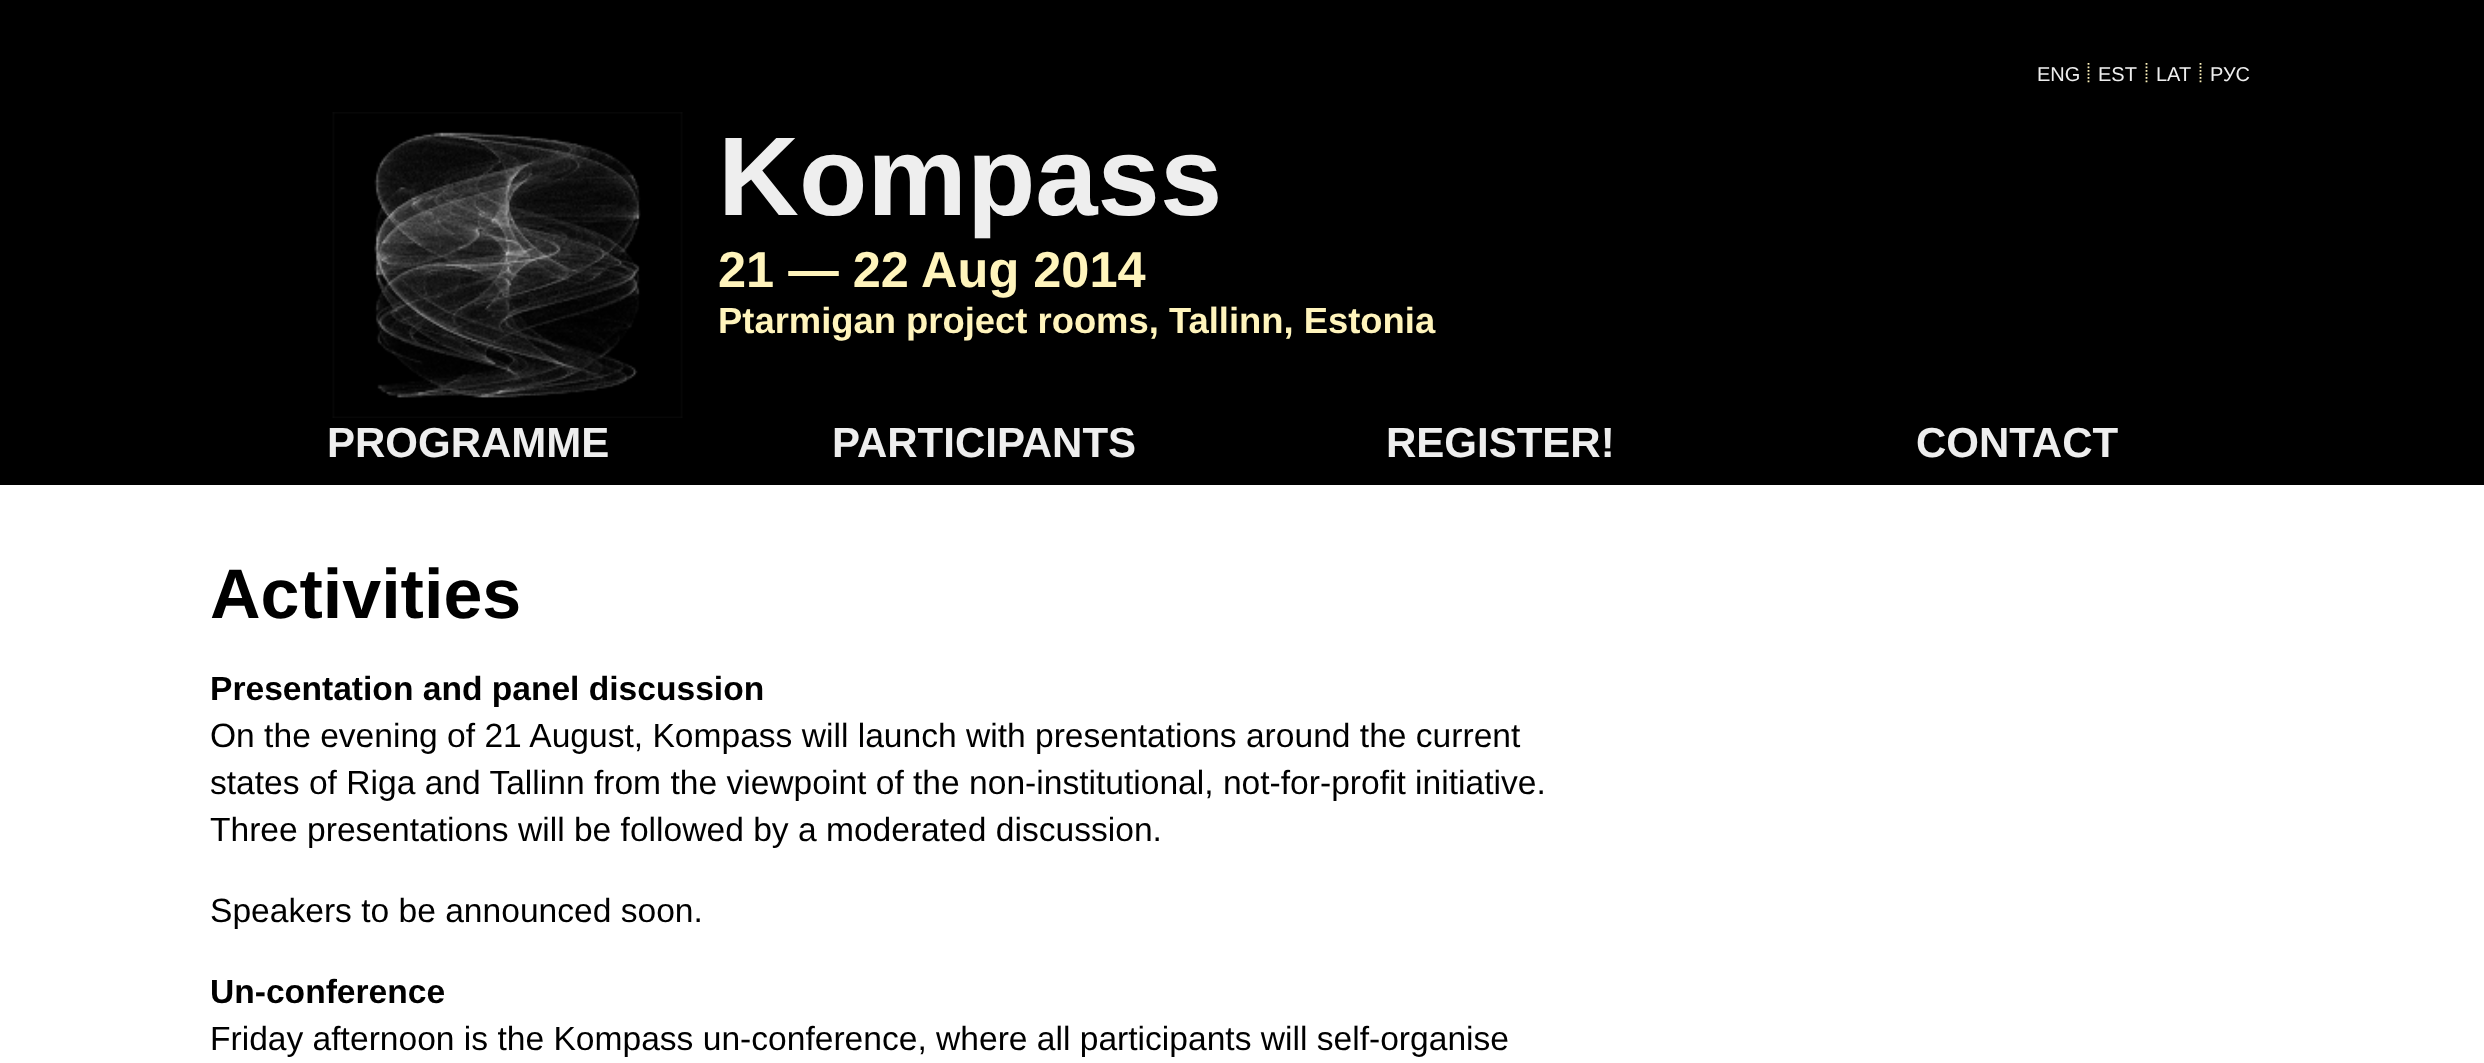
async function draw(canvas) {
  canvas.width = 2484
  canvas.height = 1063
  const ctx = canvas.getContext('2d')
  ctx.miterLimit = 4
  ctx.fontKerning = 'normal'
  async function loadImage(src) {
    const img = new Image()
    img.src = src
    await img.decode()
    return img
  }

  ctx.fillStyle = '#fff'
  ctx.fillRect(0, 0, 2484, 1063)
  ctx.fillStyle = '#000'
  ctx.fillRect(0, 0, 2484, 485)
  ctx.beginPath()
  ctx.moveTo(2088.5, 63)
  ctx.lineTo(2088.5, 84)
  ctx.strokeStyle = '#fff4bc'
  ctx.lineWidth = 1.8
  ctx.setLineDash([1.75, 1.75])
  ctx.stroke()
  ctx.font = '20px Liberation Sans'
  ctx.fillStyle = '#eee'
  ctx.fillText('ENG', 2037, 81)
  ctx.beginPath()
  ctx.moveTo(2146.5, 63)
  ctx.lineTo(2146.5, 84)
  ctx.stroke()
  ctx.fillText('EST', 2098, 81)
  ctx.beginPath()
  ctx.moveTo(2200.5, 63)
  ctx.lineTo(2200.5, 84)
  ctx.stroke()
  ctx.fillText('LAT', 2156, 81)
  ctx.fillText('РУС', 2210, 81)
  ctx.drawImage(await loadImage('image0.png'), 332, 112, 351, 306)
  ctx.font = 'bold 112px Liberation Sans'
  ctx.fillText('Kompass', 718, 215)
  ctx.font = 'bold 50.5px Liberation Sans'
  ctx.fillStyle = '#fff4bc'
  ctx.fillText('21 — 22 Aug 2014', 718, 287)
  ctx.font = 'bold 36.4px Liberation Sans'
  ctx.fillText('Ptarmigan project rooms, Tallinn, Estonia', 718, 333)
  ctx.font = 'bold 42px Liberation Sans'
  ctx.fillStyle = '#eee'
  ctx.fillText('PROGRAMME', 327, 457)
  ctx.fillText('PARTICIPANTS', 832, 457)
  ctx.fillText('REGISTER!', 1386, 457)
  ctx.fillText('CONTACT', 1916, 457)
  ctx.font = 'bold 70px Liberation Sans'
  ctx.fillStyle = '#000'
  ctx.fillText('Activities', 210, 618)
  ctx.font = 'bold 33.6px Liberation Sans'
  ctx.fillText('Presentation and panel discussion', 210, 700)
  ctx.font = '33.6px Liberation Sans'
  ctx.fillText('On the evening of 21 August, Kompass will launch with presentations around the current', 210, 747)
  ctx.fillText('states of Riga and Tallinn from the viewpoint of the non-institutional, not-for-profit initiative.', 210, 794)
  ctx.fillText('Three presentations will be followed by a moderated discussion.', 210, 841)
  ctx.fillText('Speakers to be announced soon.', 210, 922)
  ctx.font = 'bold 33.6px Liberation Sans'
  ctx.fillText('Un-conference', 210, 1003)
  ctx.font = '33.6px Liberation Sans'
  ctx.fillText('Friday afternoon is the Kompass un-conference, where all participants will self-organise', 210, 1050)
}

draw(document.querySelector('canvas'))
